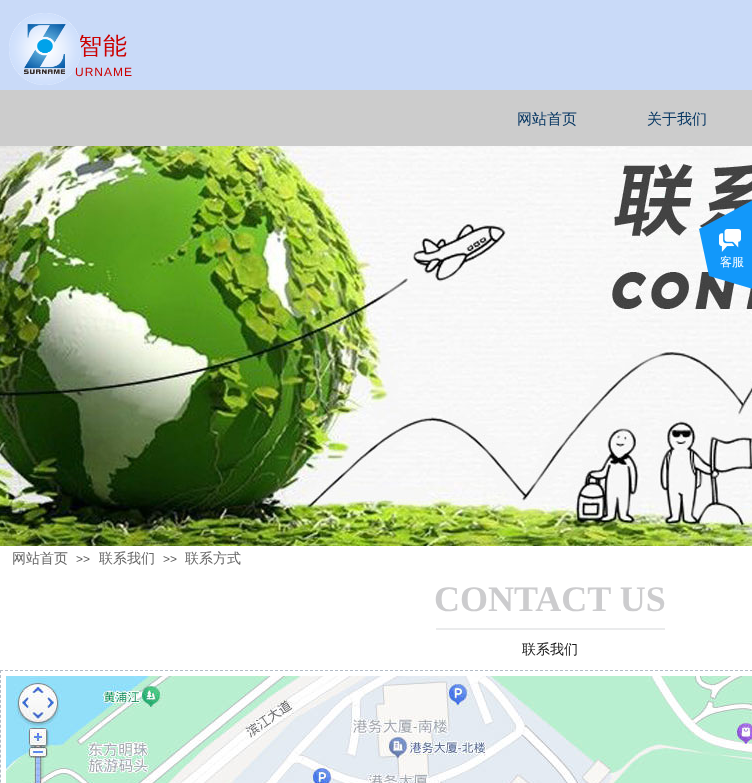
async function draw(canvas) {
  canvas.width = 752
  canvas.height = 783
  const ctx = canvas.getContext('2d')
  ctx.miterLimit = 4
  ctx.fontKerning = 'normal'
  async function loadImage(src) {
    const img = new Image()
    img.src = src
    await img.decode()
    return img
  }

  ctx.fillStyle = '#fff'
  ctx.fillRect(0, 0, 752, 783)
  ctx.fillStyle = '#c9daf8'
  ctx.fillRect(0, 0, 752, 90)
  ctx.letterSpacing = '1px'
  ctx.font = '500 24px WenQuanYi Zen Hei'
  ctx.fillStyle = '#c00'
  ctx.fillText('智能', 78, 54)
  ctx.font = '12px Liberation Sans'
  ctx.fillText('URNAME', 75, 76)
  ctx.drawImage(await loadImage('image0.png'), 9, 13, 72, 72)
  ctx.fillStyle = '#ccc'
  ctx.fillRect(0, 90, 752, 56)
  ctx.letterSpacing = '0px'
  ctx.font = '500 15px WenQuanYi Zen Hei'
  ctx.fillStyle = '#073763'
  ctx.fillText('网站首页', 517, 124)
  ctx.fillText('关于我们', 647, 124)
  ctx.drawImage(await loadImage('image1.png'), 0, 146, 752, 400)
  ctx.font = '500 14px WenQuanYi Zen Hei'
  ctx.fillStyle = '#666'
  ctx.fillText('网站首页', 12, 563)
  ctx.font = '12px Liberation Sans'
  ctx.fillStyle = '#5a5a5a'
  ctx.fillText('>>', 76, 563)
  ctx.font = '500 14px WenQuanYi Zen Hei'
  ctx.fillStyle = '#666'
  ctx.fillText('联系我们', 99, 563)
  ctx.font = '12px Liberation Sans'
  ctx.fillStyle = '#5a5a5a'
  ctx.fillText('>>', 163, 563)
  ctx.font = '500 14px WenQuanYi Zen Hei'
  ctx.fillStyle = '#666'
  ctx.fillText('联系方式', 185, 563)
  ctx.font = 'bold 36px Liberation Serif'
  ctx.fillStyle = '#ccccce'
  ctx.fillText('CONTACT US', 434, 611)
  ctx.fillStyle = '#eaebec'
  ctx.fillRect(436, 628, 229, 2)
  ctx.font = '500 14px WenQuanYi Zen Hei'
  ctx.fillStyle = '#161616'
  ctx.fillText('联系我们', 522, 654)
  ctx.beginPath()
  ctx.moveTo(0, 670.5)
  ctx.lineTo(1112, 670.5)
  ctx.strokeStyle = '#b3bbc5'
  ctx.setLineDash([3, 2])
  ctx.stroke()
  ctx.beginPath()
  ctx.moveTo(0.5, 670)
  ctx.lineTo(0.5, 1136)
  ctx.setLineDash([3, 1.98])
  ctx.stroke()
  ctx.drawImage(await loadImage('image2.png'), 6, 676, 746, 107)
  ctx.drawImage(await loadImage('image3.png'), 699, 200, 53, 89)
  ctx.font = '500 12px WenQuanYi Zen Hei'
  ctx.fillStyle = '#fff'
  ctx.fillText('客服', 720, 266)
}

draw(document.querySelector('canvas'))
